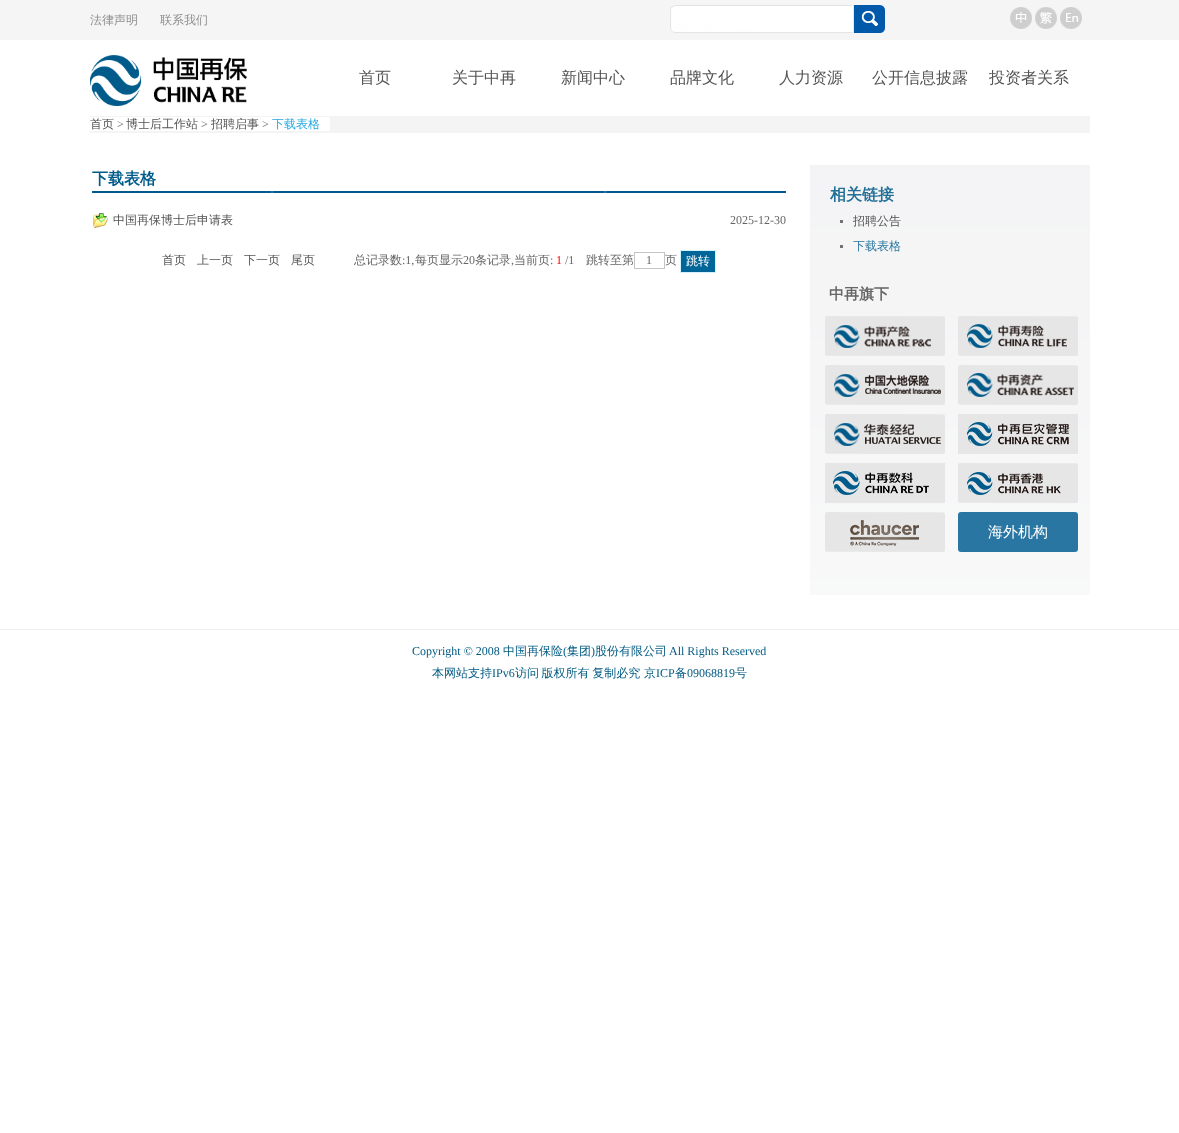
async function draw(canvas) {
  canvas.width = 1179
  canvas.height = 1133
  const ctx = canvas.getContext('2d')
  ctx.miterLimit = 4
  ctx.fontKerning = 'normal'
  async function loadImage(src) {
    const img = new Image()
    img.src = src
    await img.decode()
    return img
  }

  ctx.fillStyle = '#fff'
  ctx.fillRect(0, 0, 1179, 1133)
  ctx.fillStyle = '#f5f5f5'
  ctx.fillRect(0, 0, 1179, 40)
  ctx.font = '500 12px WenQuanYi Zen Hei'
  ctx.fillStyle = '#8e8e8e'
  ctx.fillText('法律声明', 90, 24)
  ctx.fillText('联系我们', 160, 24)
  ctx.drawImage(await loadImage('image0.png'), 670, 5, 215, 28)
  ctx.drawImage(await loadImage('image1.png'), 1010, 7, 22, 22)
  ctx.drawImage(await loadImage('image2.png'), 1035, 7, 22, 22)
  ctx.drawImage(await loadImage('image3.png'), 1060, 7, 22, 22)
  ctx.drawImage(await loadImage('image4.png'), 90, 55, 157, 51)
  ctx.font = '500 16px WenQuanYi Zen Hei'
  ctx.fillStyle = '#545454'
  ctx.fillText('首页', 359, 83)
  ctx.fillText('关于中再', 452, 83)
  ctx.fillText('新闻中心', 561, 83)
  ctx.fillText('品牌文化', 670, 83)
  ctx.fillText('人力资源', 779, 83)
  ctx.fillText('公开信息披露', 872, 83)
  ctx.fillText('投资者关系', 989, 83)
  ctx.fillStyle = '#f4f4f4'
  ctx.fillRect(90, 116, 1000, 17)
  ctx.fillStyle = '#fff'
  ctx.fillRect(90, 117, 240, 14)
  ctx.font = '500 12px WenQuanYi Zen Hei'
  ctx.fillStyle = '#545454'
  ctx.fillText('首页', 90, 128)
  ctx.font = '12px Liberation Serif'
  ctx.fillStyle = '#666'
  ctx.fillText('>', 117, 128)
  ctx.font = '500 12px WenQuanYi Zen Hei'
  ctx.fillStyle = '#545454'
  ctx.fillText('博士后工作站', 126, 128)
  ctx.font = '12px Liberation Serif'
  ctx.fillStyle = '#666'
  ctx.fillText('>', 201, 128)
  ctx.font = '500 12px WenQuanYi Zen Hei'
  ctx.fillStyle = '#545454'
  ctx.fillText('招聘启事', 211, 128)
  ctx.font = '12px Liberation Serif'
  ctx.fillStyle = '#666'
  ctx.fillText('>', 262, 128)
  ctx.font = '500 12px WenQuanYi Zen Hei'
  ctx.fillStyle = '#24a9e1'
  ctx.fillText('下载表格', 272, 128)
  ctx.drawImage(await loadImage('image5.png'), 92, 191, 694, 2)
  ctx.font = 'bold 16px WenQuanYi Zen Hei'
  ctx.fillStyle = '#005b8a'
  ctx.fillText('下载表格', 92, 184)
  ctx.drawImage(await loadImage('image6.png'), 93, 213, 15, 15)
  ctx.font = '500 12px WenQuanYi Zen Hei'
  ctx.fillStyle = '#545454'
  ctx.fillText('中国再保博士后申请表', 113, 224)
  ctx.font = '12px Liberation Serif'
  ctx.fillStyle = '#666'
  ctx.fillText('2025-12-30', 730, 224)
  ctx.font = '500 12px WenQuanYi Zen Hei'
  ctx.fillStyle = '#545454'
  ctx.fillText('首页', 162, 264)
  ctx.fillText('上一页', 197, 264)
  ctx.fillText('下一页', 244, 264)
  ctx.fillText('尾页', 291, 264)
  ctx.fillStyle = '#666'
  ctx.fillText('总记录数', 354, 264)
  ctx.font = '12px Liberation Serif'
  ctx.fillText(':1,', 402, 264)
  ctx.font = '500 12px WenQuanYi Zen Hei'
  ctx.fillText('每页显示', 415, 264)
  ctx.font = '12px Liberation Serif'
  ctx.fillText('20', 463, 264)
  ctx.font = '500 12px WenQuanYi Zen Hei'
  ctx.fillText('条记录', 475, 264)
  ctx.font = '12px Liberation Serif'
  ctx.fillText(',', 511, 264)
  ctx.font = '500 12px WenQuanYi Zen Hei'
  ctx.fillText('当前页', 514, 264)
  ctx.font = '12px Liberation Serif'
  ctx.fillText(':', 550, 264)
  ctx.fillStyle = '#f00'
  ctx.fillText('1', 556, 264)
  ctx.fillStyle = '#666'
  ctx.fillText('/1', 565, 264)
  ctx.font = '500 12px WenQuanYi Zen Hei'
  ctx.fillText('跳转至第', 586, 264)
  ctx.strokeStyle = '#c4c4c4'
  ctx.strokeRect(634.5, 252.5, 30, 16)
  ctx.font = '12px Liberation Serif'
  ctx.fillText('1', 646, 264)
  ctx.font = '500 12px WenQuanYi Zen Hei'
  ctx.fillText('页', 665, 264)
  ctx.fillStyle = '#069'
  ctx.beginPath()
  ctx.rect(680.5, 250.5, 35, 22)
  ctx.fill()
  ctx.strokeStyle = '#d2f3fd'
  ctx.stroke()
  ctx.fillStyle = '#fff'
  ctx.fillText('跳转', 686, 265)
  ctx.drawImage(await loadImage('image7.png'), 810, 165, 280, 430)
  ctx.font = 'bold 16px WenQuanYi Zen Hei'
  ctx.fillStyle = '#227097'
  ctx.fillText('相关链接', 830, 200)
  ctx.font = '500 12px WenQuanYi Zen Hei'
  ctx.fillStyle = '#545454'
  ctx.fillText('招聘公告', 853, 225)
  ctx.fillStyle = '#727272'
  ctx.fillRect(840, 220, 3, 3)
  ctx.fillStyle = '#2a76a1'
  ctx.fillText('下载表格', 853, 250)
  ctx.fillStyle = '#727272'
  ctx.fillRect(840, 245, 3, 3)
  ctx.font = 'bold 15px WenQuanYi Zen Hei'
  ctx.fillStyle = '#666'
  ctx.fillText('中再旗下', 829, 299)
  ctx.drawImage(await loadImage('image8.png'), 825, 316, 120, 40)
  ctx.drawImage(await loadImage('image9.png'), 958, 316, 120, 40)
  ctx.drawImage(await loadImage('image10.png'), 825, 365, 120, 40)
  ctx.drawImage(await loadImage('image11.png'), 958, 365, 120, 40)
  ctx.drawImage(await loadImage('image12.png'), 825, 414, 120, 40)
  ctx.drawImage(await loadImage('image13.png'), 958, 414, 120, 40)
  ctx.drawImage(await loadImage('image14.png'), 825, 463, 120, 40)
  ctx.drawImage(await loadImage('image15.png'), 958, 463, 120, 40)
  ctx.drawImage(await loadImage('image16.png'), 825, 512, 120, 40)
  ctx.fillStyle = '#2976a2'
  ctx.beginPath()
  ctx.roundRect(958, 512, 120, 40, 3)
  ctx.fill()
  ctx.font = '500 15px WenQuanYi Zen Hei'
  ctx.fillStyle = '#fff'
  ctx.fillText('海外机构', 988, 537)
  ctx.fillStyle = '#eee'
  ctx.fillRect(0, 629, 1179, 1)
  ctx.font = '12px Liberation Serif'
  ctx.fillStyle = '#015a82'
  ctx.fillText('Copyright © 2008', 412, 655)
  ctx.font = '500 12px WenQuanYi Zen Hei'
  ctx.fillText('中国再保险', 503, 655)
  ctx.font = '12px Liberation Serif'
  ctx.fillText('(', 563, 655)
  ctx.font = '500 12px WenQuanYi Zen Hei'
  ctx.fillText('集团', 567, 655)
  ctx.font = '12px Liberation Serif'
  ctx.fillText(')', 591, 655)
  ctx.font = '500 12px WenQuanYi Zen Hei'
  ctx.fillText('股份有限公司', 595, 655)
  ctx.font = '12px Liberation Serif'
  ctx.fillText('All Rights Reserved', 669, 655)
  ctx.font = '500 12px WenQuanYi Zen Hei'
  ctx.fillText('本网站支持', 432, 677)
  ctx.font = '12px Liberation Serif'
  ctx.fillText('IPv6', 492, 677)
  ctx.wordSpacing = '-1px'
  ctx.font = '500 12px WenQuanYi Zen Hei'
  ctx.fillText('访问 版权所有 复制必究', 515, 677)
  ctx.wordSpacing = '0px'
  ctx.fillText('京', 644, 677)
  ctx.font = '12px Liberation Serif'
  ctx.fillText('ICP', 656, 677)
  ctx.font = '500 12px WenQuanYi Zen Hei'
  ctx.fillText('备', 675, 677)
  ctx.font = '12px Liberation Serif'
  ctx.fillText('09068819', 687, 677)
  ctx.font = '500 12px WenQuanYi Zen Hei'
  ctx.fillText('号', 735, 677)
}

draw(document.querySelector('canvas'))
